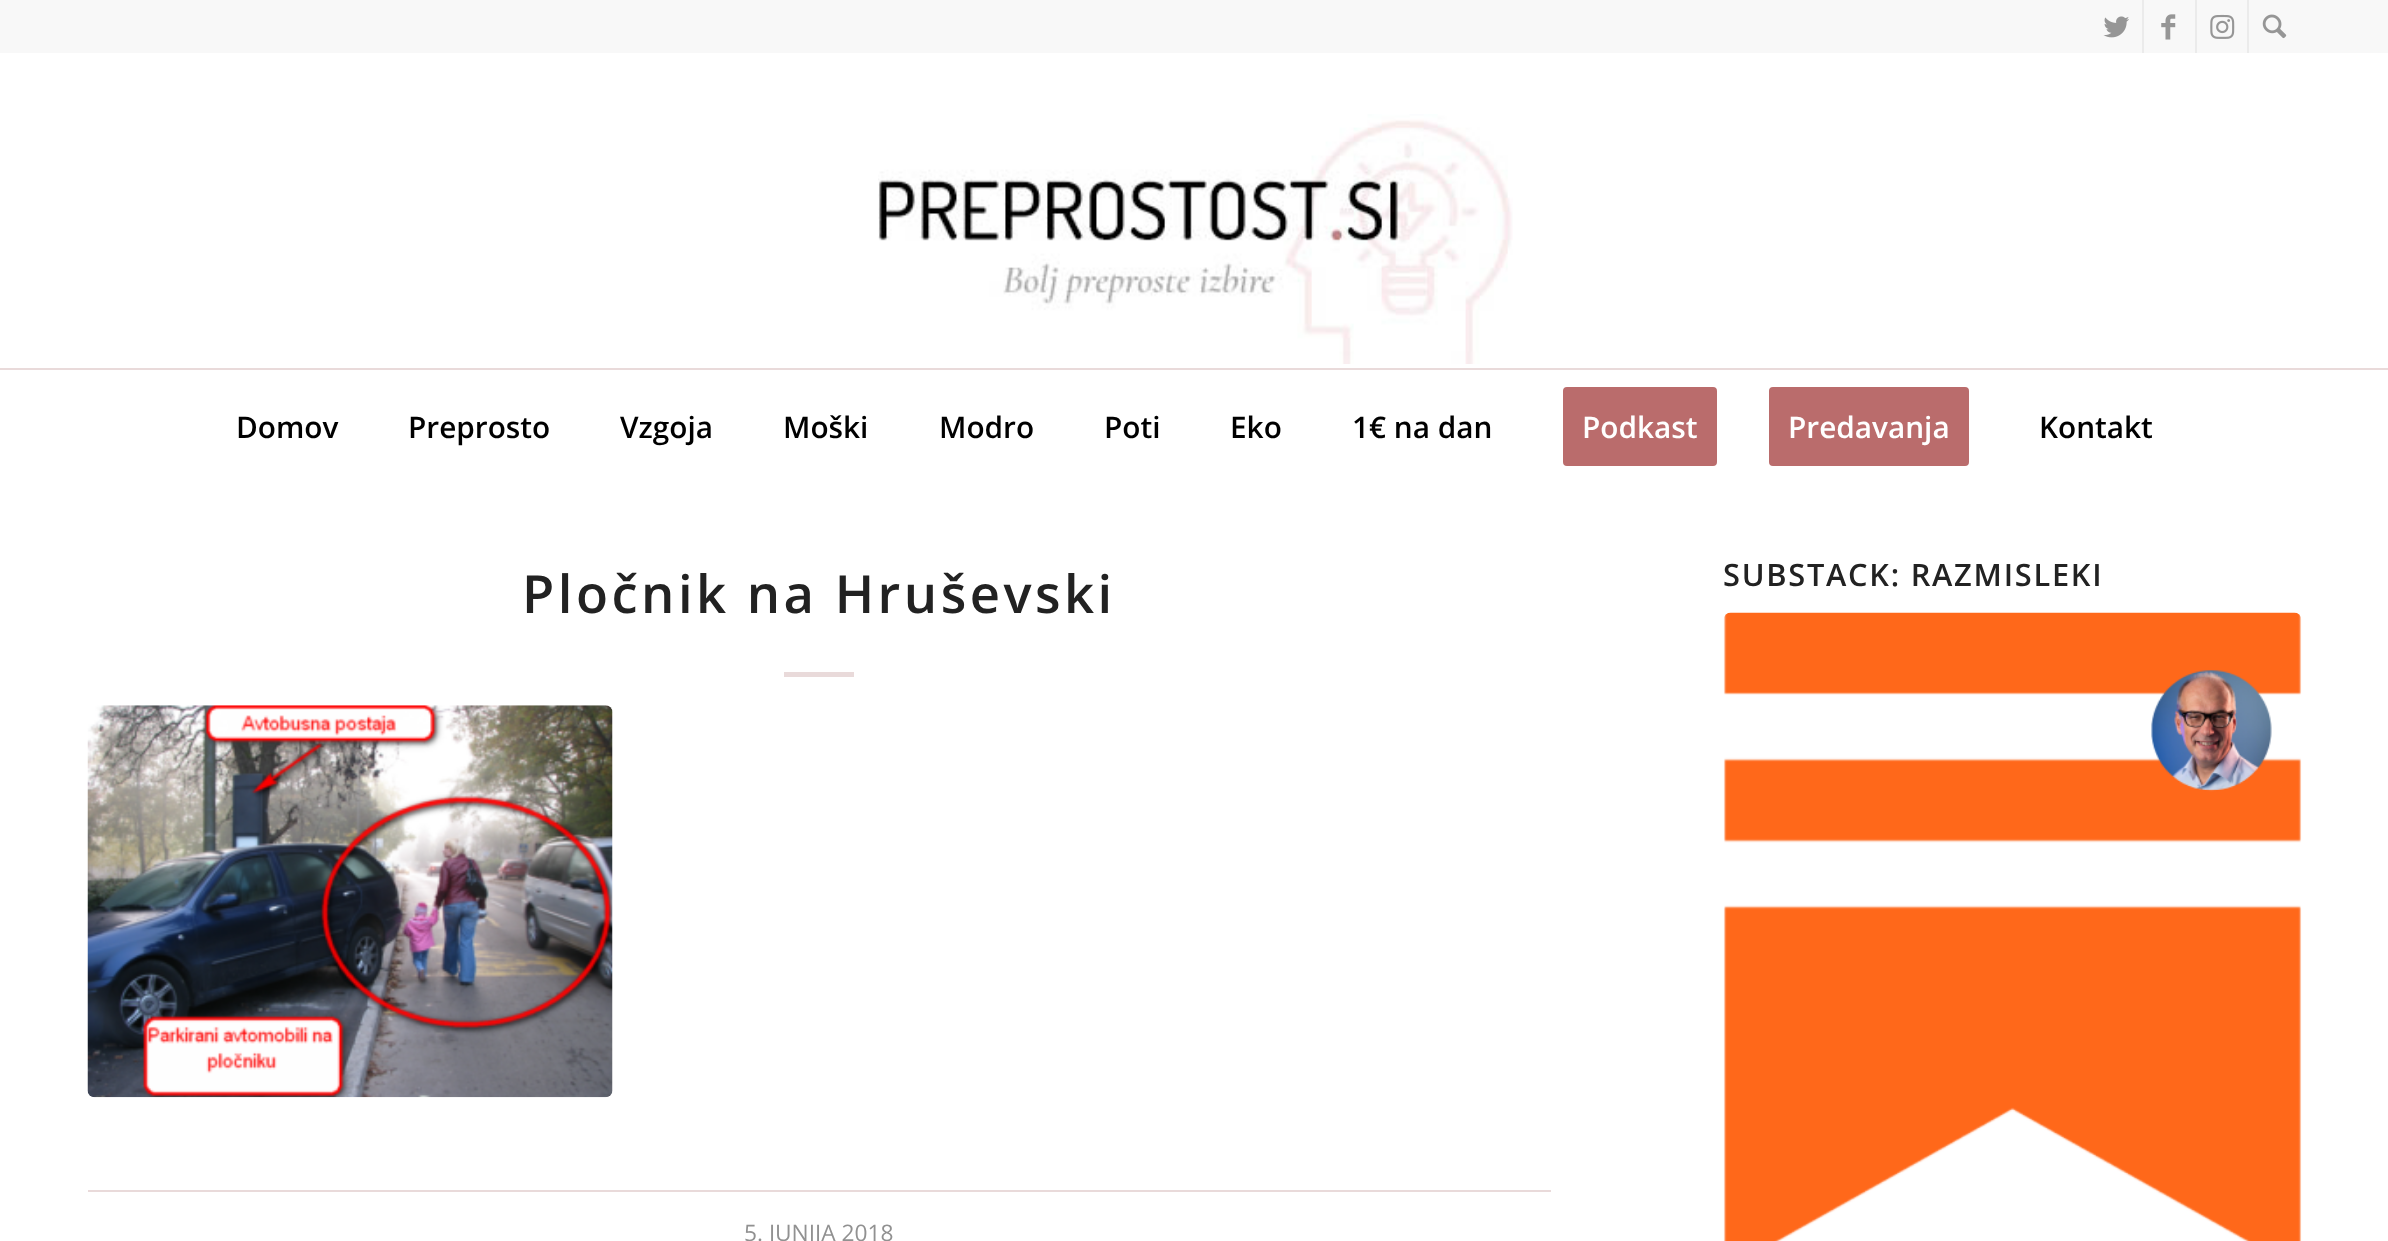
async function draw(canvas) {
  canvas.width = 2388
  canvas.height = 1241
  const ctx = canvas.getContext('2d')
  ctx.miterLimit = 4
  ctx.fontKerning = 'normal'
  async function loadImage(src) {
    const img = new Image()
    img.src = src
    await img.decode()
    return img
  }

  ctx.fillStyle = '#fff'
  ctx.fillRect(0, 0, 2388, 1241)
  ctx.fillStyle = '#f8f8f8'
  ctx.fillRect(0, 0, 2388, 53)
  ctx.fillStyle = '#ebebeb'
  ctx.fillRect(2142, 0, 2, 53)
  ctx.drawImage(await loadImage('image0.png'), 2103, 16, 26, 22)
  ctx.fillRect(2195, 0, 2, 53)
  ctx.drawImage(await loadImage('image1.png'), 2161, 14, 15, 26)
  ctx.fillRect(2247, 0, 2, 53)
  ctx.drawImage(await loadImage('image2.png'), 2210, 14, 25, 25)
  ctx.drawImage(await loadImage('image3.png'), 2262, 14, 25, 25)
  ctx.drawImage(await loadImage('image4.png'), 878, 114, 635, 250)
  ctx.fillStyle = '#e9dada'
  ctx.fillRect(0, 368, 2388, 2)
  ctx.font = '600 29.75px Open Sans'
  ctx.fillStyle = '#000'
  ctx.fillText('Domov', 236, 438)
  ctx.fillText('Preprosto', 408, 438)
  ctx.fillText('Vzgoja', 620, 438)
  ctx.fillText('Moški', 783, 438)
  ctx.fillText('Modro', 939, 438)
  ctx.fillText('Poti', 1104, 438)
  ctx.fillText('Eko', 1230, 438)
  ctx.fillText('1€ na dan', 1352, 438)
  ctx.fillStyle = '#ba6c6c'
  ctx.beginPath()
  ctx.roundRect(1565, 389, 150, 75, 2)
  ctx.fill()
  ctx.strokeStyle = '#ba6c6c'
  ctx.lineWidth = 4
  ctx.stroke()
  ctx.fillStyle = '#fff'
  ctx.fillText('Podkast', 1582, 438)
  ctx.fillStyle = '#ba6c6c'
  ctx.beginPath()
  ctx.roundRect(1771, 389, 196, 75, 2)
  ctx.fill()
  ctx.stroke()
  ctx.fillStyle = '#fff'
  ctx.fillText('Predavanja', 1788, 438)
  ctx.fillStyle = '#000'
  ctx.fillText('Kontakt', 2039, 438)
  ctx.letterSpacing = '3.5px'
  ctx.font = '600 52.5px Open Sans'
  ctx.fillStyle = '#222'
  ctx.fillText('Pločnik na Hruševski', 522, 613)
  ctx.fillStyle = '#e9dada'
  ctx.fillRect(784, 672, 70, 5)
  ctx.drawImage(await loadImage('image5.png'), 87, 705, 526, 393)
  ctx.fillRect(88, 1190, 1463, 2)
  ctx.letterSpacing = '0px'
  ctx.font = '22.75px Open Sans'
  ctx.fillStyle = '#919191'
  ctx.fillText('5. JUNIJA 2018', 744, 1241)
  ctx.letterSpacing = '1.75px'
  ctx.font = '600 30.75px Open Sans'
  ctx.fillStyle = '#222'
  ctx.fillText('SUBSTACK: RAZMISLEKI', 1723, 586)
  ctx.drawImage(await loadImage('image6.png'), 1723, 612, 579, 629)
}

draw(document.querySelector('canvas'))
